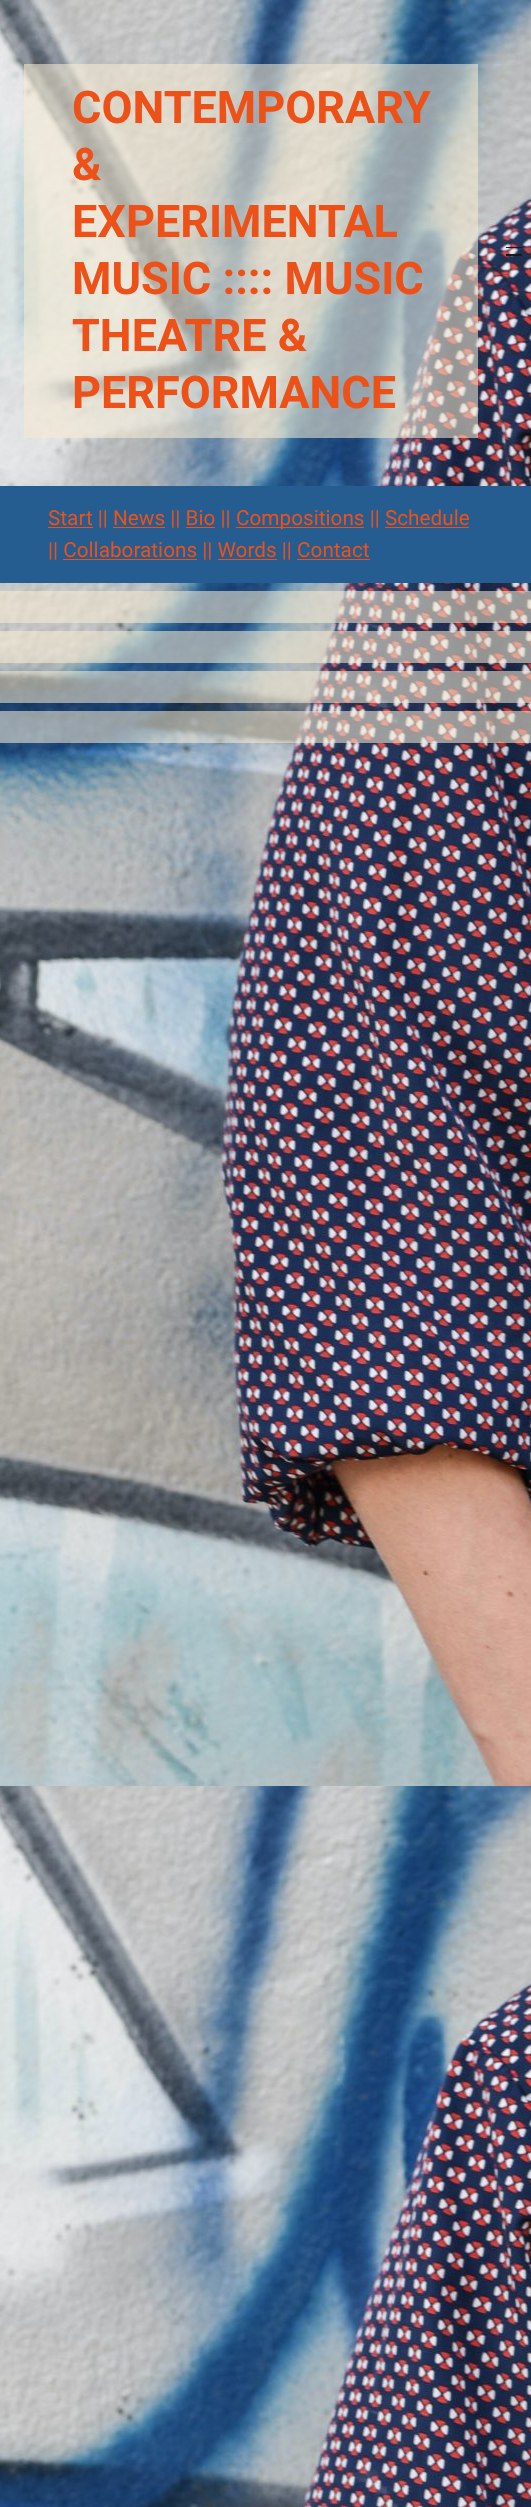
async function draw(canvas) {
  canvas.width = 531
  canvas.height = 2507
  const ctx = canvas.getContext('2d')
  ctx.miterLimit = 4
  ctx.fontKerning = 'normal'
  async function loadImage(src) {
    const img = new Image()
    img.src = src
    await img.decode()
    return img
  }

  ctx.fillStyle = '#fff'
  ctx.fillRect(0, 0, 531, 2507)
  ctx.drawImage(await loadImage('image0.png'), 0, 0, 531, 2507)
  ctx.fillStyle = '#f6ebd391'
  ctx.fillRect(24, 64, 454, 374)
  ctx.font = 'bold 45px Roboto'
  ctx.fillStyle = '#ed5118'
  ctx.fillText('CONTEMPORARY', 72, 123)
  ctx.fillText('&', 72, 180)
  ctx.fillText('EXPERIMENTAL', 72, 237)
  ctx.fillText('MUSIC :::: MUSIC', 72, 294)
  ctx.fillText('THEATRE &', 72, 351)
  ctx.fillText('PERFORMANCE', 72, 408)
  ctx.fillStyle = '#191919'
  ctx.fillRect(506, 247, 16, 1)
  ctx.fillRect(506, 254, 16, 2)
  ctx.fillStyle = '#265d90'
  ctx.fillRect(0, 486, 531, 97)
  ctx.fillStyle = '#ed5118'
  ctx.fillRect(48, 527, 45, 1)
  ctx.font = '20.75px Roboto'
  ctx.fillText('Start || News || Bio ||', 48, 525)
  ctx.fillRect(236, 527, 128, 1)
  ctx.fillText('Compositions || Schedule', 236, 525)
  ctx.fillRect(113, 527, 52, 1)
  ctx.fillRect(186, 527, 29, 1)
  ctx.fillRect(385, 527, 84, 1)
  ctx.fillText('|| Collaborations || Words || Contact', 48, 557)
  ctx.fillRect(63, 559, 134, 1)
  ctx.fillRect(218, 559, 59, 1)
  ctx.fillRect(297, 559, 73, 1)
  ctx.fillStyle = '#f6ebd391'
  ctx.fillRect(0, 591, 531, 32)
  ctx.fillRect(0, 631, 531, 32)
  ctx.fillRect(0, 671, 531, 32)
  ctx.fillRect(0, 711, 531, 32)
}

draw(document.querySelector('canvas'))
